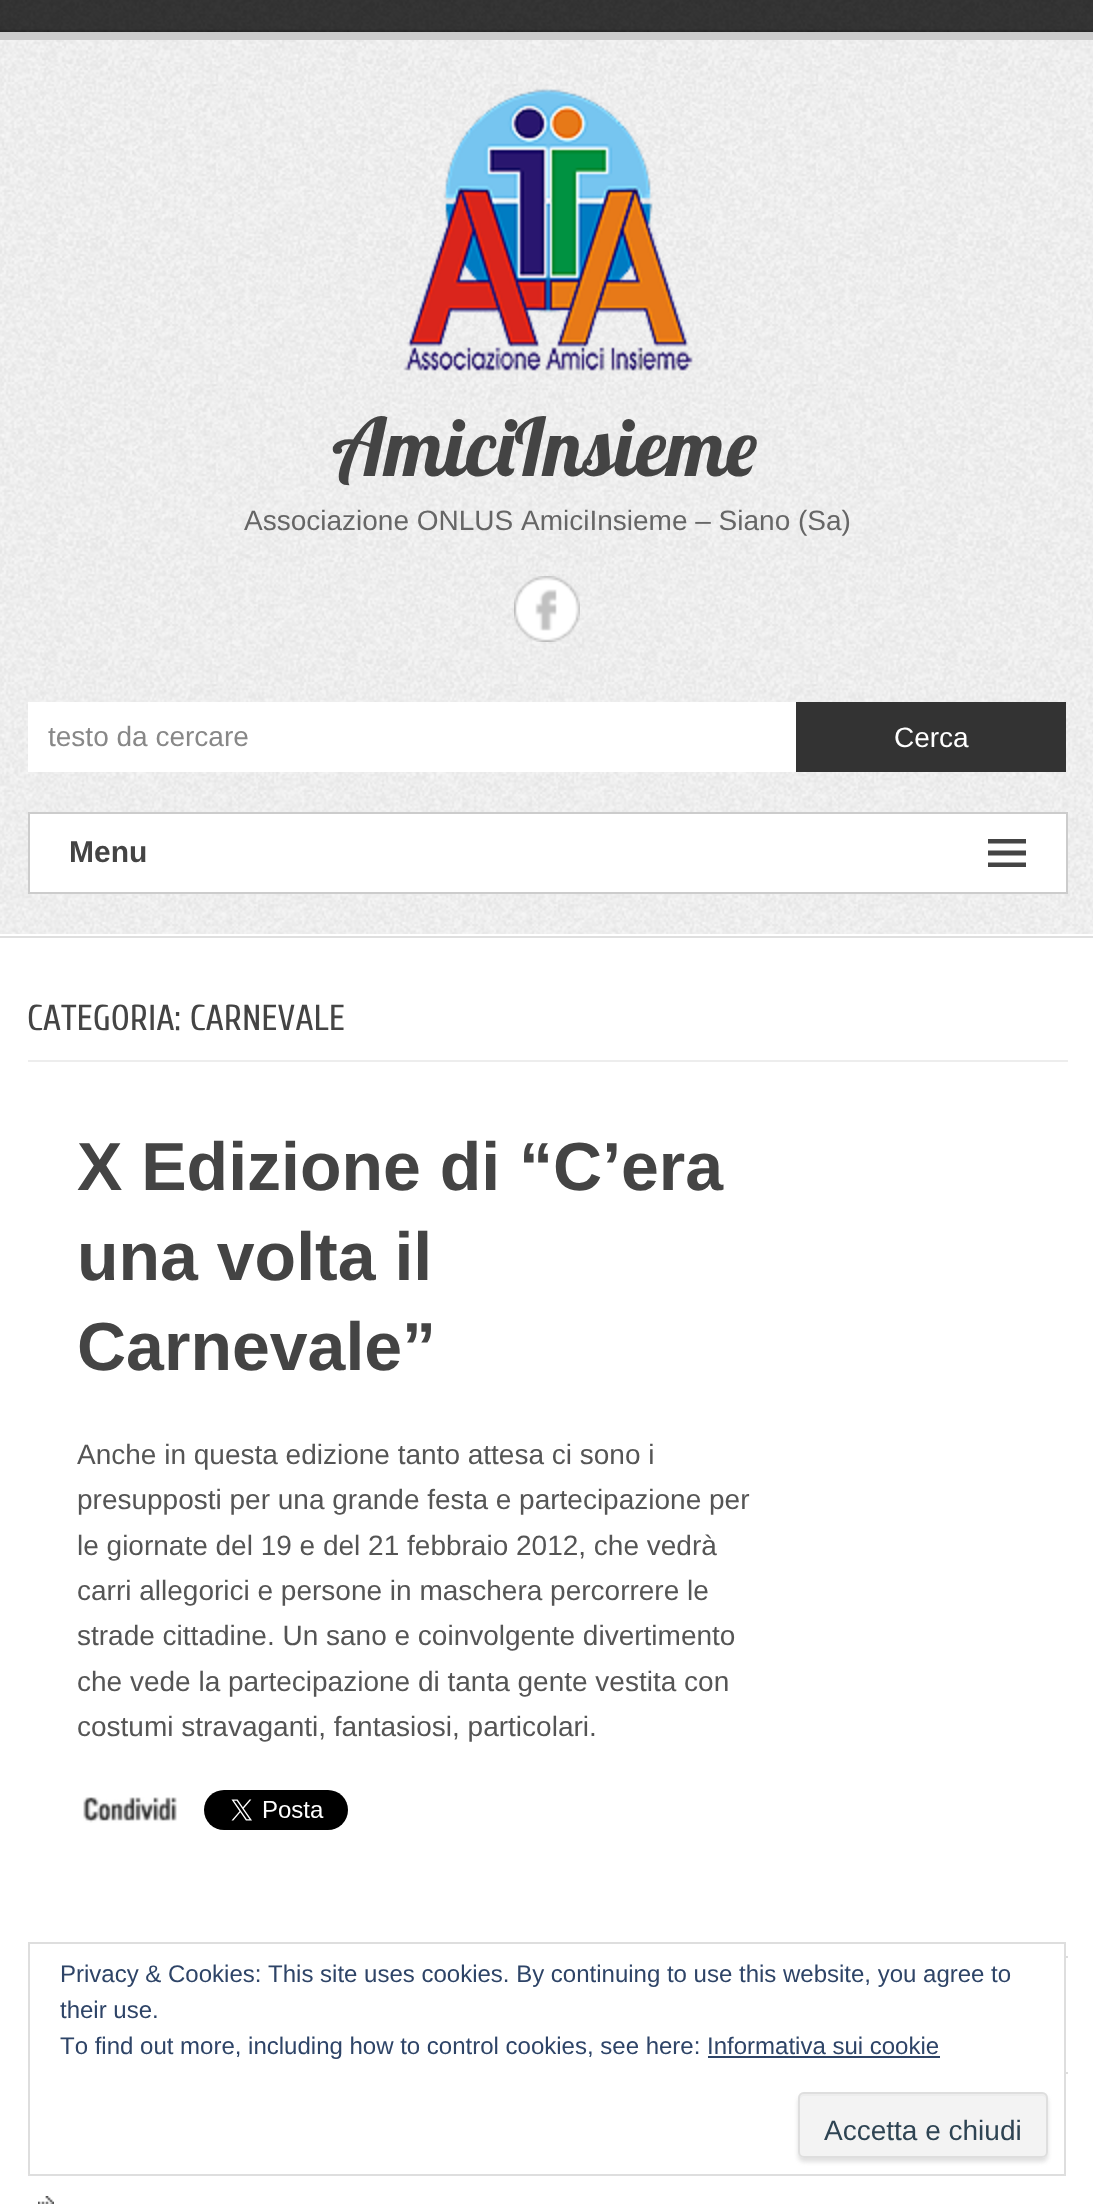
async function draw(canvas) {
  canvas.width = 1093
  canvas.height = 2204
  const ctx = canvas.getContext('2d')
  ctx.miterLimit = 4
  ctx.fontKerning = 'none'
  async function loadImage(src) {
    const img = new Image()
    img.src = src
    await img.decode()
    return img
  }

  ctx.fillStyle = '#fff'
  ctx.fillRect(0, 0, 1093, 2204)
  ctx.drawImage(await loadImage('image0.png'), 0, 40, 1093, 894)
  ctx.fillStyle = '#dfdfdf'
  ctx.fillRect(0, 936, 1093, 2)
  ctx.drawImage(await loadImage('image1.png'), 0, 0, 1093, 32)
  ctx.fillStyle = '#ccc'
  ctx.fillRect(0, 32, 1093, 8)
  ctx.drawImage(await loadImage('image2.png'), 403, 89, 290, 282)
  ctx.font = '80px Lobster'
  ctx.fillStyle = '#444'
  ctx.fillText('AmiciInsieme', 332, 476)
  ctx.font = '28px Liberation Sans'
  ctx.fillStyle = '#666'
  ctx.fillText('Associazione ONLUS AmiciInsieme – Siano (Sa)', 244, 530)
  ctx.drawImage(await loadImage('image3.png'), 514, 576, 66, 66)
  ctx.fillStyle = '#fff'
  ctx.fillRect(28, 702, 768, 70)
  ctx.fillStyle = '#888'
  ctx.fillText('testo da cercare', 48, 746)
  ctx.fillStyle = '#333'
  ctx.fillRect(796, 702, 270, 70)
  ctx.fillStyle = '#fff'
  ctx.fillText('Cerca', 894, 747)
  ctx.beginPath()
  ctx.rect(29, 813, 1038, 80)
  ctx.fill()
  ctx.strokeStyle = '#ccc'
  ctx.lineWidth = 2
  ctx.stroke()
  ctx.font = 'bold 30px Liberation Sans'
  ctx.fillStyle = '#444'
  ctx.fillText('Menu', 69, 862)
  ctx.beginPath()
  ctx.moveTo(988, 867)
  ctx.lineTo(988, 862.5)
  ctx.lineTo(1026, 862.5)
  ctx.lineTo(1026, 867)
  ctx.closePath()
  ctx.moveTo(988, 839)
  ctx.lineTo(1026, 839)
  ctx.lineTo(1026, 843.5)
  ctx.lineTo(988, 843.5)
  ctx.closePath()
  ctx.moveTo(988, 855.5)
  ctx.lineTo(988, 850.5)
  ctx.lineTo(1026, 850.5)
  ctx.lineTo(1026, 855.5)
  ctx.closePath()
  ctx.fill()
  ctx.fillStyle = '#ededed'
  ctx.fillRect(28, 1060, 1040, 2)
  ctx.font = '36px Cuprum'
  ctx.fillStyle = '#444'
  ctx.fillText('CATEGORIA: CARNEVALE', 27, 1030)
  ctx.fillStyle = '#ddd'
  ctx.fillRect(1066, 1956, 2, 2)
  ctx.font = 'bold 68px Liberation Sans'
  ctx.fillStyle = '#444'
  ctx.fillText('X Edizione di “C’era', 77, 1190)
  ctx.fillText('una volta il', 77, 1280)
  ctx.fillText('Carnevale”', 77, 1370)
  ctx.font = '28px Liberation Sans'
  ctx.fillStyle = '#555'
  ctx.fillText('Anche in questa edizione tanto attesa ci sono i', 77, 1464)
  ctx.fillText('presupposti per una grande festa e partecipazione per', 77, 1509)
  ctx.fillText('le giornate del 19 e del 21 febbraio 2012, che vedrà', 77, 1555)
  ctx.fillText('carri allegorici e persone in maschera percorrere le', 77, 1600)
  ctx.fillText('strade cittadine. Un sano e coinvolgente divertimento', 77, 1645)
  ctx.fillText('che vede la partecipazione di tanta gente vestita con', 77, 1691)
  ctx.fillText('costumi stravaganti, fantasiosi, particolari.', 77, 1736)
  ctx.drawImage(await loadImage('image4.png'), 83, 1797, 94, 26)
  ctx.drawImage(await loadImage('image5.png'), 204, 1790, 144, 40)
  ctx.fillStyle = '#ddd'
  ctx.fillRect(1066, 2072, 2, 2)
  ctx.drawImage(await loadImage('image6.png'), 38, 2196, 16, 8)
  ctx.strokeStyle = '#dedede'
  ctx.strokeRect(29, 1943, 1036, 232)
  ctx.font = '24px Liberation Sans'
  ctx.fillStyle = '#2e4467'
  ctx.fillText('Privacy & Cookies: This site uses cookies. By continuing to use this website, you agree to', 60, 1982)
  ctx.fillText('their use.', 60, 2018)
  ctx.fillText('To find out more, including how to control cookies, see here: Informativa sui cookie', 60, 2054)
  ctx.fillRect(708, 2056, 232, 2)
  ctx.fillStyle = '#e0e0e0'
  ctx.filter = 'blur(2px)'
  ctx.beginPath()
  ctx.roundRect(798, 2096, 250, 66, 6)
  ctx.fill()
  ctx.filter = 'none'
  ctx.fillStyle = '#f3f3f3'
  ctx.beginPath()
  ctx.roundRect(798, 2092, 250, 66, 6)
  ctx.fill()
  ctx.fillStyle = '#ededed'
  ctx.beginPath()
  ctx.moveTo(804, 2096)
  ctx.lineTo(1042, 2096)
  ctx.bezierCurveTo(1044, 2096, 1046, 2098, 1046, 2100)
  ctx.lineTo(1046, 2098)
  ctx.bezierCurveTo(1046, 2096, 1044, 2094, 1042, 2094)
  ctx.lineTo(804, 2094)
  ctx.bezierCurveTo(802, 2094, 800, 2096, 800, 2098)
  ctx.lineTo(800, 2100)
  ctx.bezierCurveTo(800, 2098, 802, 2096, 804, 2096)
  ctx.closePath()
  ctx.fill()
  ctx.beginPath()
  ctx.roundRect(799, 2093, 248, 64, 5)
  ctx.stroke()
  ctx.font = '28px Liberation Sans'
  ctx.fillStyle = '#2e4453'
  ctx.fillText('Accetta e chiudi', 824, 2140)
}

draw(document.querySelector('canvas'))
